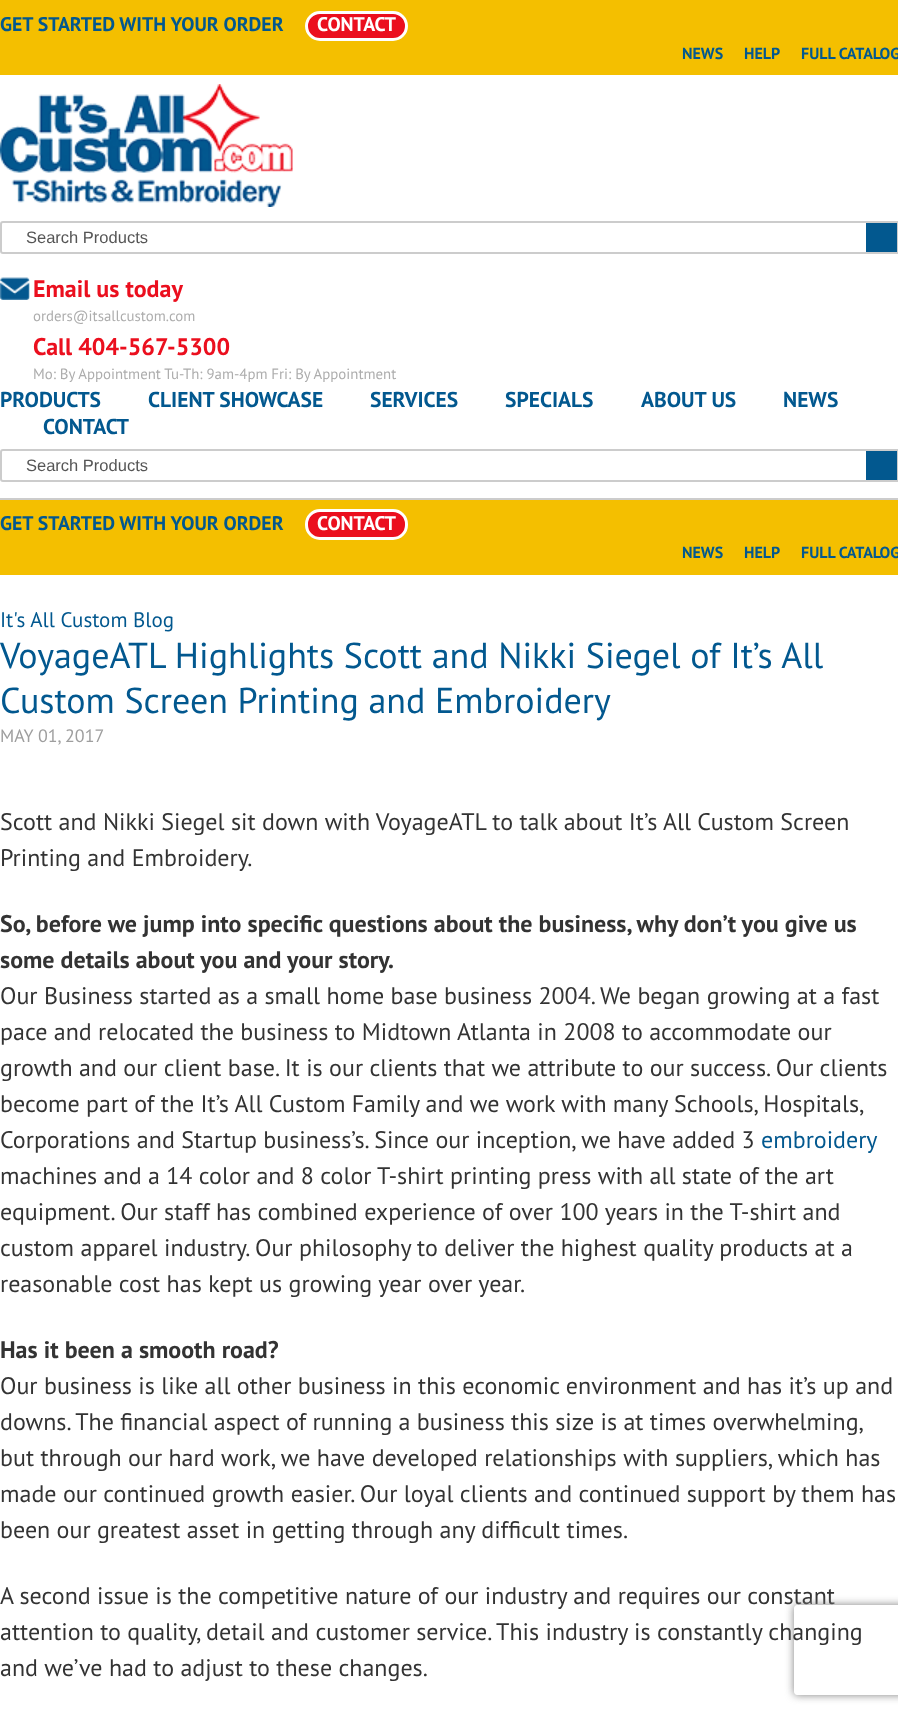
async function draw(canvas) {
  canvas.width = 898
  canvas.height = 1715
  const ctx = canvas.getContext('2d')
  ctx.miterLimit = 4
  ctx.fontKerning = 'normal'
  async function loadImage(src) {
    const img = new Image()
    img.src = src
    await img.decode()
    return img
  }

  ctx.fillStyle = '#fff'
  ctx.fillRect(0, 0, 898, 1715)
  ctx.fillStyle = '#f4bf00'
  ctx.fillRect(0, 0, 898, 75)
  ctx.font = 'bold 19.75px PT Sans'
  ctx.fillStyle = '#02588f'
  ctx.fillText('GET STARTED WITH YOUR ORDER', 0, 31)
  ctx.fillStyle = '#eb0f1e'
  ctx.beginPath()
  ctx.roundRect(306.5, 12.5, 100, 27, 13.5)
  ctx.fill()
  ctx.strokeStyle = '#fff'
  ctx.lineWidth = 3
  ctx.stroke()
  ctx.fillStyle = '#fff'
  ctx.fillText('CONTACT', 317, 31)
  ctx.font = 'bold 16px PT Sans'
  ctx.fillStyle = '#02588f'
  ctx.fillText('NEWS', 682, 59)
  ctx.fillText('HELP', 744, 59)
  ctx.fillText('FULL CATALOG', 801, 59)
  ctx.fillStyle = '#ccc'
  ctx.fillRect(0, 498, 898, 2)
  ctx.drawImage(await loadImage('image0.png'), 0, 84, 293, 123)
  ctx.beginPath()
  ctx.roundRect(1, 222, 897, 31, 2)
  ctx.strokeStyle = '#ccc'
  ctx.lineWidth = 2
  ctx.stroke()
  ctx.font = '16.5px Liberation Sans'
  ctx.fillStyle = '#555'
  ctx.fillText('Search Products', 26, 243)
  ctx.fillStyle = '#02588f'
  ctx.fillRect(866, 223, 31, 29)
  ctx.fillStyle = '#ccc'
  ctx.fillRect(896, 221, 2, 1)
  ctx.fillRect(896, 253, 2, 1)
  ctx.drawImage(await loadImage('image1.png'), 0, 277, 30, 23)
  ctx.font = 'bold 24px PT Sans'
  ctx.fillStyle = '#eb0f1e'
  ctx.fillText('Email us today', 33, 297)
  ctx.font = '14.85px PT Sans'
  ctx.fillStyle = '#adadad'
  ctx.fillText('orders@itsallcustom.com', 33, 321)
  ctx.font = 'bold 24px PT Sans'
  ctx.fillStyle = '#eb0f1e'
  ctx.fillText('Call 404-567-5300', 33, 355)
  ctx.wordSpacing = '-0.1px'
  ctx.font = '14.85px PT Sans'
  ctx.fillStyle = '#adadad'
  ctx.fillText('Mo: By Appointment Tu-Th: 9am-4pm Fri: By Appointment', 33, 379)
  ctx.wordSpacing = '0px'
  ctx.font = 'bold 21.5px PT Sans'
  ctx.fillStyle = '#02588f'
  ctx.fillText('PRODUCTS', 0, 407)
  ctx.fillText('CLIENT SHOWCASE', 148, 407)
  ctx.fillText('SERVICES', 370, 407)
  ctx.fillText('SPECIALS', 505, 407)
  ctx.fillText('ABOUT US', 641, 407)
  ctx.fillText('NEWS', 783, 407)
  ctx.fillText('CONTACT', 43, 434)
  ctx.beginPath()
  ctx.roundRect(1, 450, 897, 31, 2)
  ctx.stroke()
  ctx.font = '16.5px Liberation Sans'
  ctx.fillStyle = '#555'
  ctx.fillText('Search Products', 26, 471)
  ctx.fillStyle = '#02588f'
  ctx.fillRect(866, 451, 31, 29)
  ctx.fillStyle = '#ccc'
  ctx.fillRect(896, 449, 2, 1)
  ctx.fillRect(896, 481, 2, 1)
  ctx.fillStyle = '#f4bf00'
  ctx.fillRect(0, 500, 898, 75)
  ctx.font = 'bold 19.75px PT Sans'
  ctx.fillStyle = '#02588f'
  ctx.fillText('GET STARTED WITH YOUR ORDER', 0, 530)
  ctx.fillStyle = '#eb0f1e'
  ctx.beginPath()
  ctx.roundRect(306.5, 510.5, 100, 28, 13.5)
  ctx.fill()
  ctx.strokeStyle = '#fff'
  ctx.lineWidth = 3
  ctx.stroke()
  ctx.fillStyle = '#fff'
  ctx.fillText('CONTACT', 317, 530)
  ctx.font = 'bold 16px PT Sans'
  ctx.fillStyle = '#02588f'
  ctx.fillText('NEWS', 682, 558)
  ctx.fillText('HELP', 744, 558)
  ctx.fillText('FULL CATALOG', 801, 558)
  ctx.font = '21px PT Sans'
  ctx.fillText('It\'s All Custom Blog', 0, 627)
  ctx.font = '36px PT Sans'
  ctx.fillText('VoyageATL Highlights Scott and Nikki Siegel of It’s All', 0, 668)
  ctx.fillText('Custom Screen Printing and Embroidery', 0, 713)
  ctx.font = '18px PT Sans'
  ctx.fillStyle = '#9e9e9e'
  ctx.fillText('MAY 01, 2017', 0, 742)
  ctx.font = '24px PT Sans'
  ctx.fillStyle = '#333'
  ctx.fillText('Scott and Nikki Siegel sit down with VoyageATL to talk about It’s All Custom Screen', 0, 830)
  ctx.fillText('Printing and Embroidery.', 0, 866)
  ctx.font = 'bold 24px PT Sans'
  ctx.fillText('So, before we jump into specific questions about the business, why don’t you give us', 0, 932)
  ctx.fillText('some details about you and your story.', 0, 968)
  ctx.font = '24px PT Sans'
  ctx.fillText('Our Business started as a small home base business 2004. We began growing at a fast', 0, 1004)
  ctx.fillText('pace and relocated the business to Midtown Atlanta in 2008 to accommodate our', 0, 1040)
  ctx.fillText('growth and our client base. It is our clients that we attribute to our success. Our clients', 0, 1076)
  ctx.wordSpacing = '-0.1px'
  ctx.fillText('become part of the It’s All Custom Family and we work with many Schools, Hospitals,', 0, 1112)
  ctx.wordSpacing = '0px'
  ctx.fillText('Corporations and Startup business’s. Since our inception, we have added 3', 0, 1148)
  ctx.fillStyle = '#02588f'
  ctx.fillText('embroidery', 761, 1148)
  ctx.fillStyle = '#333'
  ctx.fillText('machines and a 14 color and 8 color T-shirt printing press with all state of the art', 0, 1184)
  ctx.fillText('equipment. Our staff has combined experience of over 100 years in the T-shirt and', 0, 1220)
  ctx.fillText('custom apparel industry. Our philosophy to deliver the highest quality products at a', 0, 1256)
  ctx.fillText('reasonable cost has kept us growing year over year.', 0, 1292)
  ctx.font = 'bold 24px PT Sans'
  ctx.fillText('Has it been a smooth road?', 0, 1358)
  ctx.font = '24px PT Sans'
  ctx.fillText('Our business is like all other business in this economic environment and has it’s up and', 0, 1394)
  ctx.wordSpacing = '-0.1px'
  ctx.fillText('downs. The financial aspect of running a business this size is at times overwhelming,', 0, 1430)
  ctx.wordSpacing = '0px'
  ctx.fillText('but through our hard work, we have developed relationships with suppliers, which has', 0, 1466)
  ctx.fillText('made our continued growth easier. Our loyal clients and continued support by them has', 0, 1502)
  ctx.fillText('been our greatest asset in getting through any difficult times.', 0, 1538)
  ctx.fillText('A second issue is the competitive nature of our industry and requires our constant', 0, 1604)
  ctx.fillText('attention to quality, detail and customer service. This industry is constantly changing', 0, 1640)
  ctx.fillText('and we’ve had to adjust to these changes.', 0, 1676)
  ctx.save()
  ctx.beginPath()
  ctx.moveTo(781, 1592)
  ctx.lineTo(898, 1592)
  ctx.lineTo(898, 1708)
  ctx.lineTo(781, 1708)
  ctx.closePath()
  ctx.moveTo(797, 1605)
  ctx.lineTo(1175, 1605)
  ctx.bezierCurveTo(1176.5, 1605, 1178, 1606.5, 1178, 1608)
  ctx.lineTo(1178, 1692)
  ctx.bezierCurveTo(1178, 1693.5, 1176.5, 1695, 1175, 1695)
  ctx.lineTo(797, 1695)
  ctx.bezierCurveTo(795.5, 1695, 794, 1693.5, 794, 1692)
  ctx.lineTo(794, 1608)
  ctx.bezierCurveTo(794, 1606.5, 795.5, 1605, 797, 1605)
  ctx.closePath()
  ctx.clip('evenodd')
  ctx.fillStyle = '#808080'
  ctx.filter = 'blur(4px)'
  ctx.beginPath()
  ctx.roundRect(794, 1605, 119, 90, 3)
  ctx.fill()
  ctx.filter = 'none'
  ctx.restore()
}

draw(document.querySelector('canvas'))
